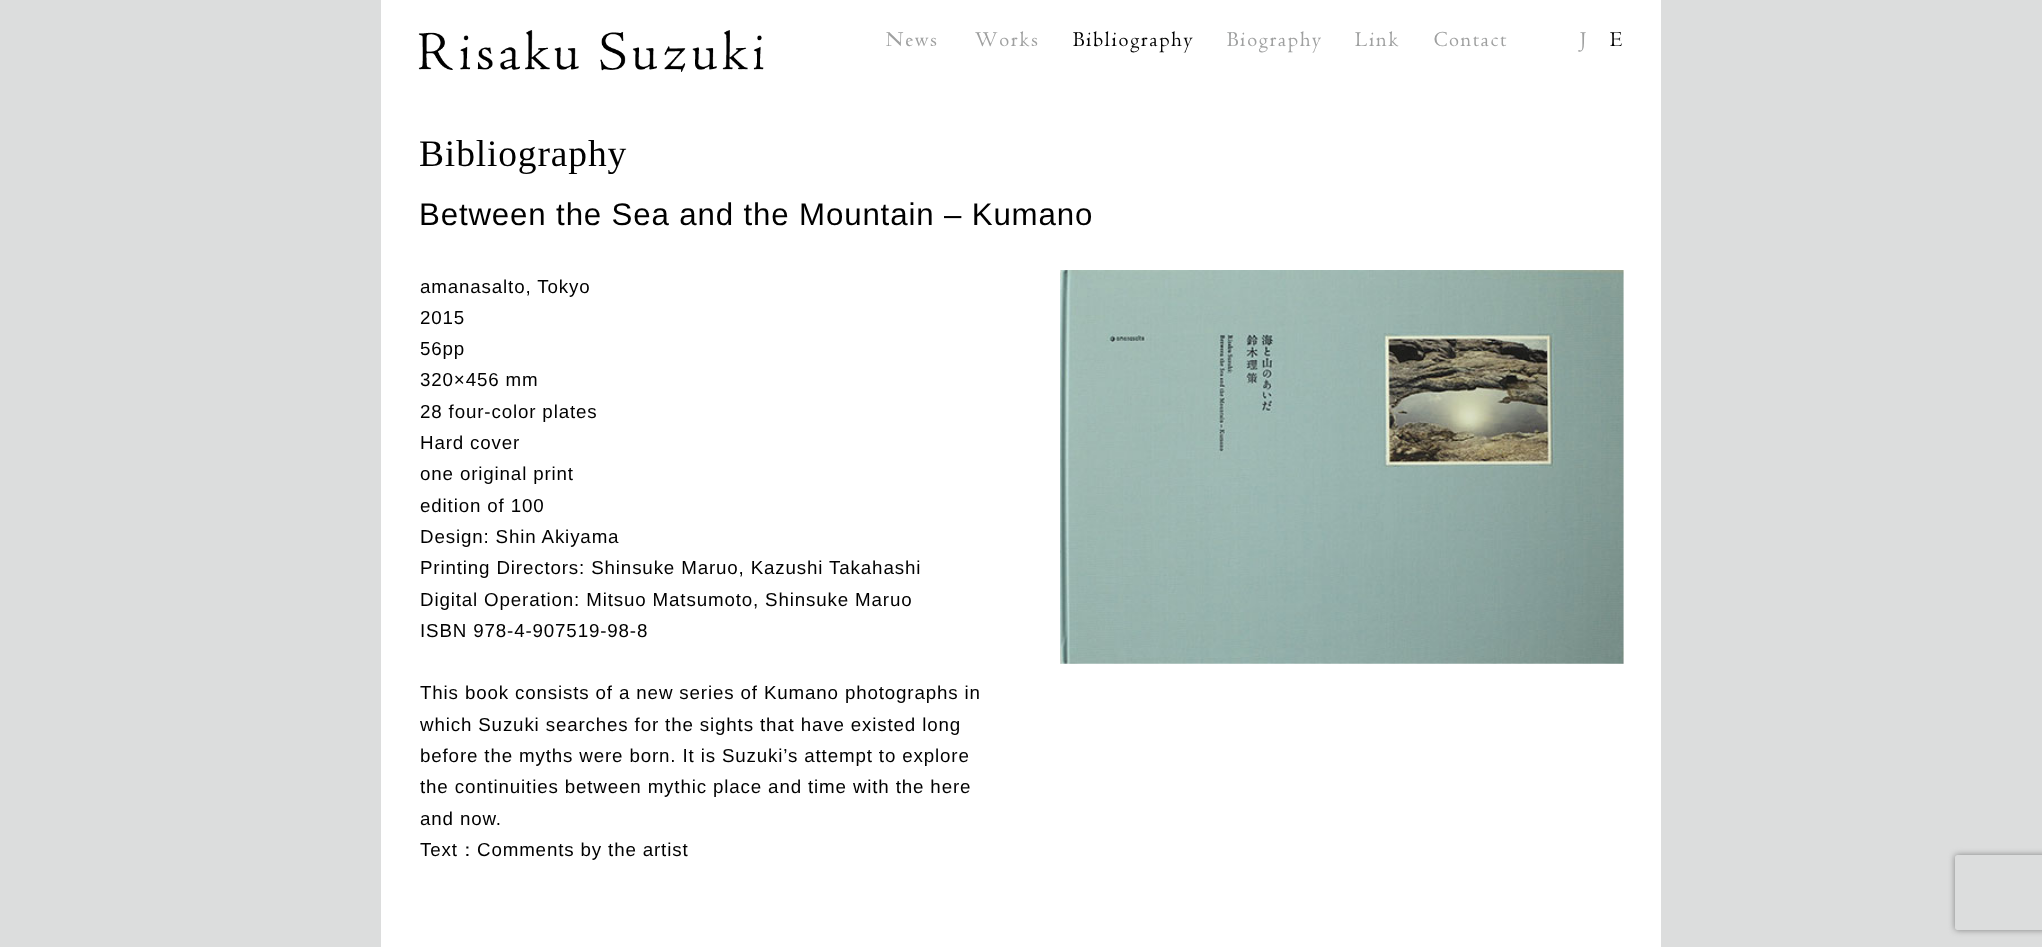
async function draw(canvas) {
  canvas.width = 2042
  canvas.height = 947
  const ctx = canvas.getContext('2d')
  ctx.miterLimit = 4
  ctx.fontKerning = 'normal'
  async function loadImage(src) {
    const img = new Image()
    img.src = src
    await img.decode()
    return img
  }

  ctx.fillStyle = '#dcdddd'
  ctx.fillRect(0, 0, 2042, 947)
  ctx.fillStyle = '#fff'
  ctx.fillRect(381, 0, 1280, 947)
  ctx.drawImage(await loadImage('image0.png'), 418, 30, 346, 42)
  ctx.letterSpacing = '1.75px'
  ctx.font = '22.5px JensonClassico'
  ctx.fillStyle = '#9fa0a0'
  ctx.fillText('News', 886, 46)
  ctx.fillText('Works', 975, 46)
  ctx.fillStyle = '#000'
  ctx.fillText('Bibliography', 1073, 46)
  ctx.fillStyle = '#9fa0a0'
  ctx.fillText('Biography', 1227, 46)
  ctx.fillText('Link', 1355, 46)
  ctx.fillText('Contact', 1434, 46)
  ctx.letterSpacing = '0.85px'
  ctx.fillText('J', 1580, 46)
  ctx.fillStyle = '#000'
  ctx.fillText('E', 1610, 46)
  ctx.font = '37.5px Liberation Serif'
  ctx.fillText('Bibliography', 419, 166)
  ctx.font = '31.25px Liberation Sans'
  ctx.fillText('Between the Sea and the Mountain – Kumano', 419, 225)
  ctx.font = '18.75px Liberation Sans'
  ctx.fillText('amanasalto, Tokyo', 420, 293)
  ctx.fillText('2015', 420, 324)
  ctx.fillText('56pp', 420, 355)
  ctx.fillText('320×456 mm', 420, 386)
  ctx.fillText('28 four-color plates', 420, 418)
  ctx.fillText('Hard cover', 420, 449)
  ctx.fillText('one original print', 420, 480)
  ctx.fillText('edition of 100', 420, 512)
  ctx.fillText('Design: Shin Akiyama', 420, 543)
  ctx.fillText('Printing Directors: Shinsuke Maruo, Kazushi Takahashi', 420, 574)
  ctx.fillText('Digital Operation: Mitsuo Matsumoto, Shinsuke Maruo', 420, 606)
  ctx.fillText('ISBN 978-4-907519-98-8', 420, 637)
  ctx.fillText('This book consists of a new series of Kumano photographs in', 420, 699)
  ctx.fillText('which Suzuki searches for the sights that have existed long', 420, 731)
  ctx.fillText('before the myths were born. It is Suzuki’s attempt to explore', 420, 762)
  ctx.fillText('the continuities between mythic place and time with the here', 420, 793)
  ctx.fillText('and now.', 420, 825)
  ctx.fillText('Text', 420, 856)
  ctx.font = '500 18.75px WenQuanYi Zen Hei'
  ctx.fillText('：', 458, 856)
  ctx.font = '18.75px Liberation Sans'
  ctx.fillText('Comments by the artist', 477, 856)
  ctx.drawImage(await loadImage('image1.png'), 1060, 270, 564, 394)
  ctx.save()
  ctx.beginPath()
  ctx.moveTo(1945, 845)
  ctx.lineTo(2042, 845)
  ctx.lineTo(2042, 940)
  ctx.lineTo(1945, 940)
  ctx.closePath()
  ctx.moveTo(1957.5, 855)
  ctx.lineTo(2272.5, 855)
  ctx.bezierCurveTo(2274, 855, 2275, 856, 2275, 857.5)
  ctx.lineTo(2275, 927.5)
  ctx.bezierCurveTo(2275, 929, 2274, 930, 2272.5, 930)
  ctx.lineTo(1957.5, 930)
  ctx.bezierCurveTo(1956, 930, 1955, 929, 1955, 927.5)
  ctx.lineTo(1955, 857.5)
  ctx.bezierCurveTo(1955, 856, 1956, 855, 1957.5, 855)
  ctx.closePath()
  ctx.clip('evenodd')
  ctx.fillStyle = '#808080'
  ctx.filter = 'blur(3px)'
  ctx.beginPath()
  ctx.roundRect(1955, 855, 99, 75, 2.5)
  ctx.fill()
  ctx.filter = 'none'
  ctx.restore()
}

draw(document.querySelector('canvas'))
